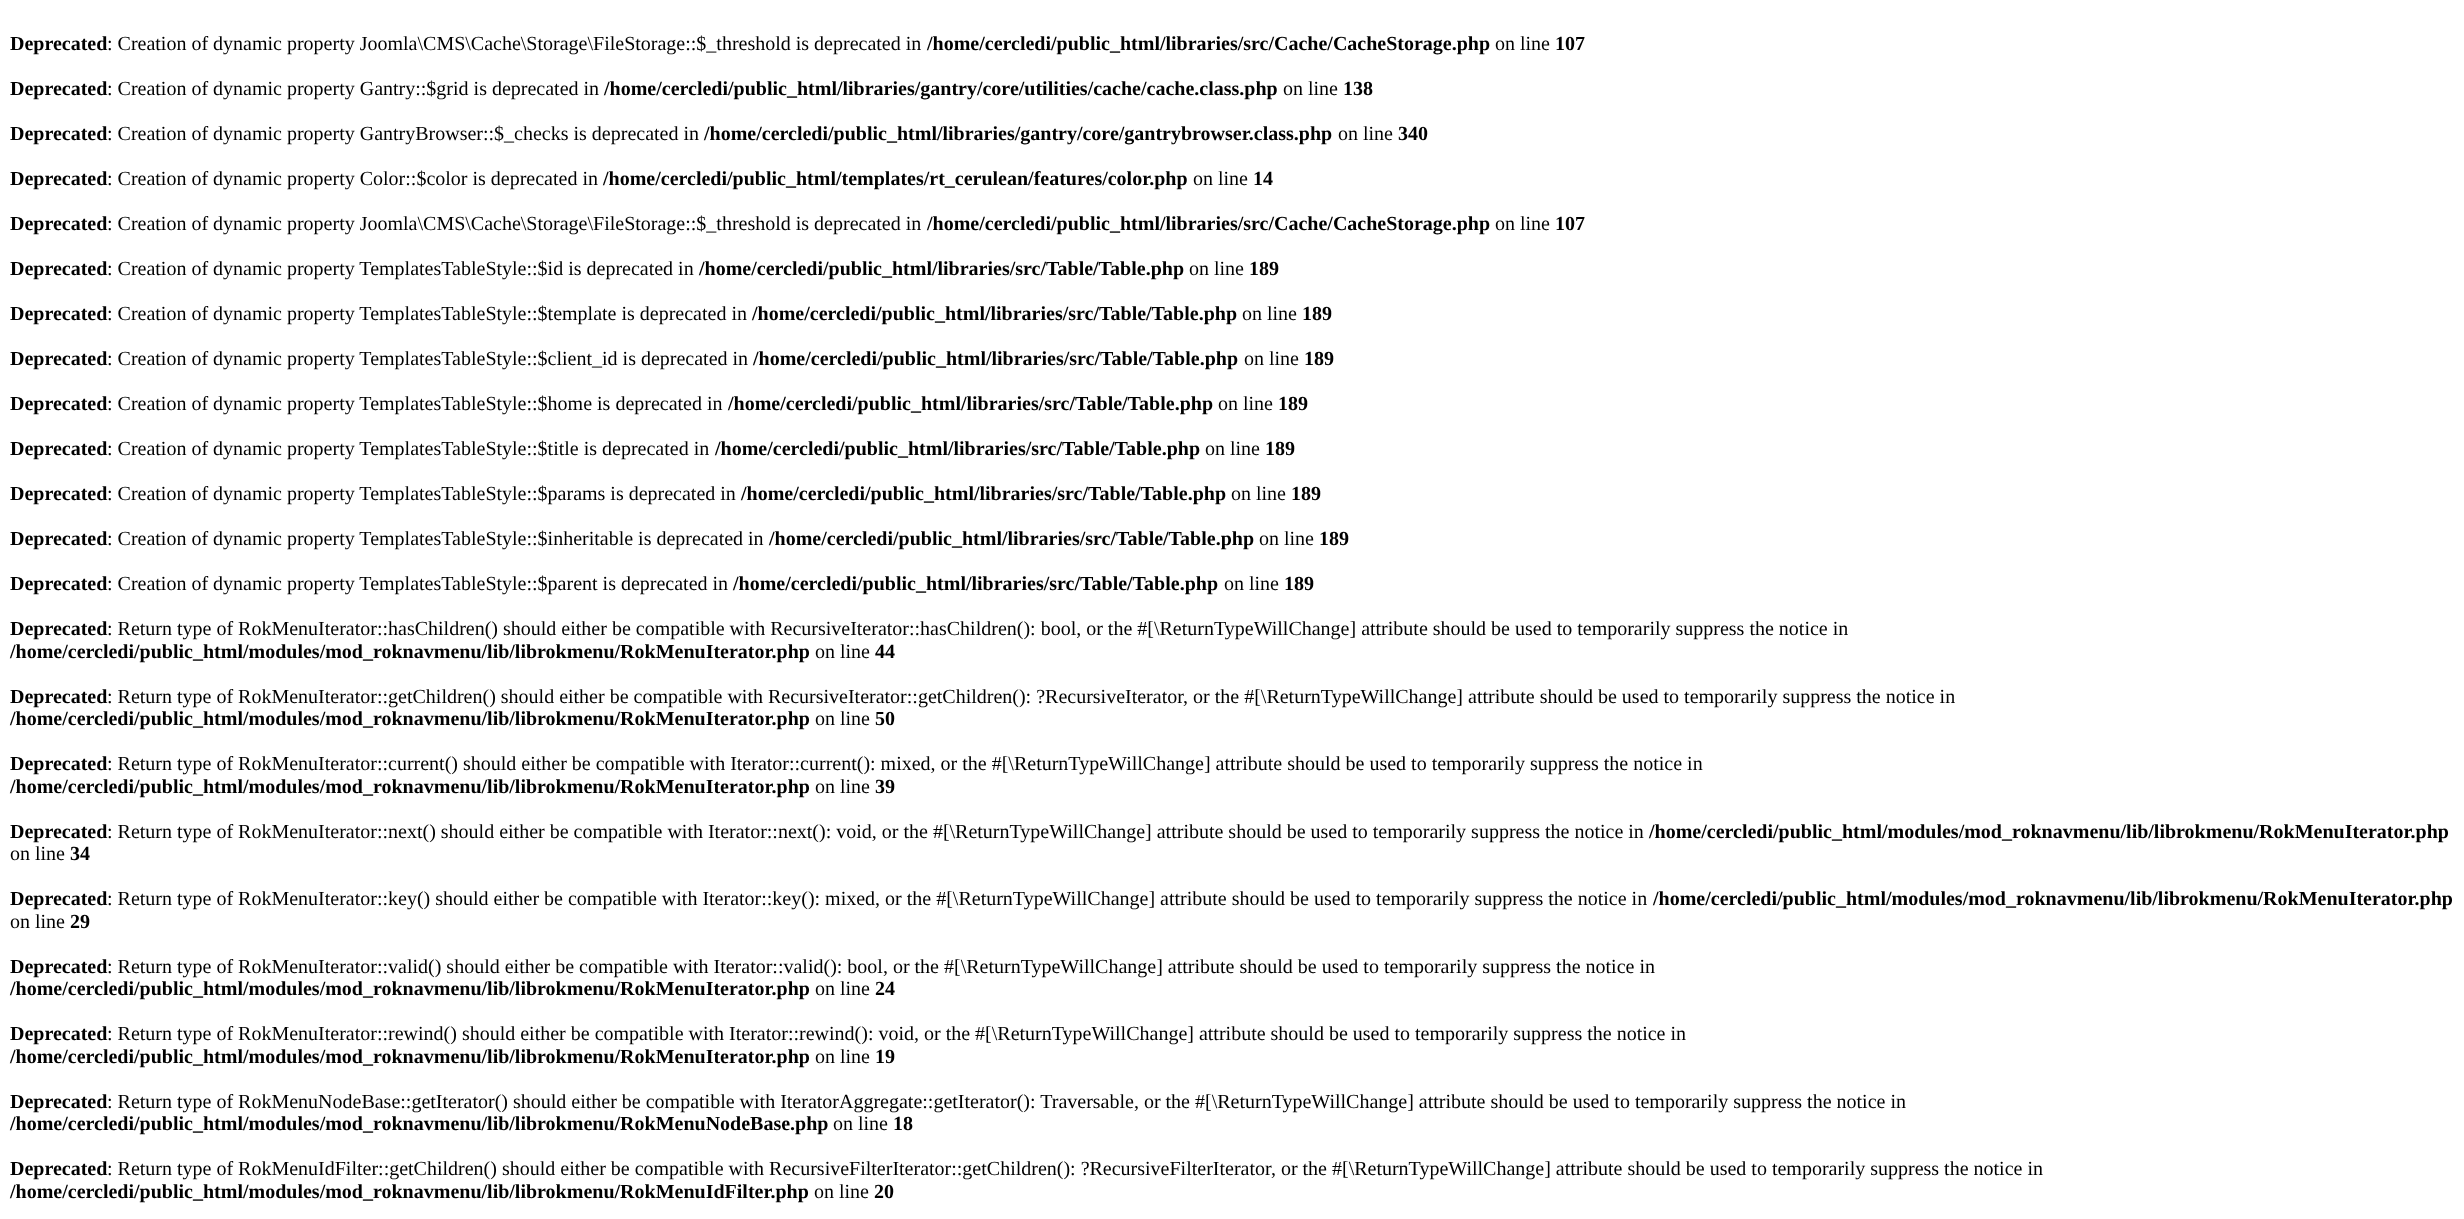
async function draw(canvas) {
  canvas.width = 2464
  canvas.height = 1219
  const ctx = canvas.getContext('2d')
  ctx.miterLimit = 4
  ctx.fontKerning = 'normal'

  ctx.fillStyle = '#fff'
  ctx.fillRect(0, 0, 2464, 1219)
  ctx.font = 'bold 20px Liberation Serif'
  ctx.fillStyle = '#000'
  ctx.fillText('Deprecated', 10, 50)
  ctx.font = '20px Liberation Serif'
  ctx.fillText(': Creation of dynamic property Joomla\\CMS\\Cache\\Storage\\FileStorage::$_threshold is deprecated in', 107, 50)
  ctx.font = 'bold 20px Liberation Serif'
  ctx.fillText('/home/cercledi/public_html/libraries/src/Cache/CacheStorage.php', 927, 50)
  ctx.font = '20px Liberation Serif'
  ctx.fillText('on line', 1495, 50)
  ctx.font = 'bold 20px Liberation Serif'
  ctx.fillText('107', 1555, 50)
  ctx.fillText('Deprecated', 10, 95)
  ctx.font = '20px Liberation Serif'
  ctx.fillText(': Creation of dynamic property Gantry::$grid is deprecated in', 107, 95)
  ctx.font = 'bold 20px Liberation Serif'
  ctx.fillText('/home/cercledi/public_html/libraries/gantry/core/utilities/cache/cache.class.php', 604, 95)
  ctx.font = '20px Liberation Serif'
  ctx.fillText('on line', 1283, 95)
  ctx.font = 'bold 20px Liberation Serif'
  ctx.fillText('138', 1343, 95)
  ctx.fillText('Deprecated', 10, 140)
  ctx.font = '20px Liberation Serif'
  ctx.fillText(': Creation of dynamic property GantryBrowser::$_checks is deprecated in', 107, 140)
  ctx.font = 'bold 20px Liberation Serif'
  ctx.fillText('/home/cercledi/public_html/libraries/gantry/core/gantrybrowser.class.php', 704, 140)
  ctx.font = '20px Liberation Serif'
  ctx.fillText('on line', 1338, 140)
  ctx.font = 'bold 20px Liberation Serif'
  ctx.fillText('340', 1398, 140)
  ctx.fillText('Deprecated', 10, 185)
  ctx.font = '20px Liberation Serif'
  ctx.fillText(': Creation of dynamic property Color::$color is deprecated in', 107, 185)
  ctx.font = 'bold 20px Liberation Serif'
  ctx.fillText('/home/cercledi/public_html/templates/rt_cerulean/features/color.php', 603, 185)
  ctx.font = '20px Liberation Serif'
  ctx.fillText('on line', 1193, 185)
  ctx.font = 'bold 20px Liberation Serif'
  ctx.fillText('14', 1253, 185)
  ctx.fillText('Deprecated', 10, 230)
  ctx.font = '20px Liberation Serif'
  ctx.fillText(': Creation of dynamic property Joomla\\CMS\\Cache\\Storage\\FileStorage::$_threshold is deprecated in', 107, 230)
  ctx.font = 'bold 20px Liberation Serif'
  ctx.fillText('/home/cercledi/public_html/libraries/src/Cache/CacheStorage.php', 927, 230)
  ctx.font = '20px Liberation Serif'
  ctx.fillText('on line', 1495, 230)
  ctx.font = 'bold 20px Liberation Serif'
  ctx.fillText('107', 1555, 230)
  ctx.fillText('Deprecated', 10, 275)
  ctx.font = '20px Liberation Serif'
  ctx.fillText(': Creation of dynamic property TemplatesTableStyle::$id is deprecated in', 107, 275)
  ctx.font = 'bold 20px Liberation Serif'
  ctx.fillText('/home/cercledi/public_html/libraries/src/Table/Table.php', 699, 275)
  ctx.font = '20px Liberation Serif'
  ctx.fillText('on line', 1189, 275)
  ctx.font = 'bold 20px Liberation Serif'
  ctx.fillText('189', 1249, 275)
  ctx.fillText('Deprecated', 10, 320)
  ctx.font = '20px Liberation Serif'
  ctx.fillText(': Creation of dynamic property TemplatesTableStyle::$template is deprecated in', 107, 320)
  ctx.font = 'bold 20px Liberation Serif'
  ctx.fillText('/home/cercledi/public_html/libraries/src/Table/Table.php', 752, 320)
  ctx.font = '20px Liberation Serif'
  ctx.fillText('on line', 1242, 320)
  ctx.font = 'bold 20px Liberation Serif'
  ctx.fillText('189', 1302, 320)
  ctx.fillText('Deprecated', 10, 365)
  ctx.font = '20px Liberation Serif'
  ctx.fillText(': Creation of dynamic property TemplatesTableStyle::$client_id is deprecated in', 107, 365)
  ctx.font = 'bold 20px Liberation Serif'
  ctx.fillText('/home/cercledi/public_html/libraries/src/Table/Table.php', 753, 365)
  ctx.font = '20px Liberation Serif'
  ctx.fillText('on line', 1244, 365)
  ctx.font = 'bold 20px Liberation Serif'
  ctx.fillText('189', 1304, 365)
  ctx.fillText('Deprecated', 10, 410)
  ctx.font = '20px Liberation Serif'
  ctx.fillText(': Creation of dynamic property TemplatesTableStyle::$home is deprecated in', 107, 410)
  ctx.font = 'bold 20px Liberation Serif'
  ctx.fillText('/home/cercledi/public_html/libraries/src/Table/Table.php', 728, 410)
  ctx.font = '20px Liberation Serif'
  ctx.fillText('on line', 1218, 410)
  ctx.font = 'bold 20px Liberation Serif'
  ctx.fillText('189', 1278, 410)
  ctx.fillText('Deprecated', 10, 455)
  ctx.font = '20px Liberation Serif'
  ctx.fillText(': Creation of dynamic property TemplatesTableStyle::$title is deprecated in', 107, 455)
  ctx.font = 'bold 20px Liberation Serif'
  ctx.fillText('/home/cercledi/public_html/libraries/src/Table/Table.php', 715, 455)
  ctx.font = '20px Liberation Serif'
  ctx.fillText('on line', 1205, 455)
  ctx.font = 'bold 20px Liberation Serif'
  ctx.fillText('189', 1265, 455)
  ctx.fillText('Deprecated', 10, 500)
  ctx.font = '20px Liberation Serif'
  ctx.fillText(': Creation of dynamic property TemplatesTableStyle::$params is deprecated in', 107, 500)
  ctx.font = 'bold 20px Liberation Serif'
  ctx.fillText('/home/cercledi/public_html/libraries/src/Table/Table.php', 741, 500)
  ctx.font = '20px Liberation Serif'
  ctx.fillText('on line', 1231, 500)
  ctx.font = 'bold 20px Liberation Serif'
  ctx.fillText('189', 1291, 500)
  ctx.fillText('Deprecated', 10, 545)
  ctx.font = '20px Liberation Serif'
  ctx.fillText(': Creation of dynamic property TemplatesTableStyle::$inheritable is deprecated in', 107, 545)
  ctx.font = 'bold 20px Liberation Serif'
  ctx.fillText('/home/cercledi/public_html/libraries/src/Table/Table.php', 769, 545)
  ctx.font = '20px Liberation Serif'
  ctx.fillText('on line', 1259, 545)
  ctx.font = 'bold 20px Liberation Serif'
  ctx.fillText('189', 1319, 545)
  ctx.fillText('Deprecated', 10, 590)
  ctx.font = '20px Liberation Serif'
  ctx.fillText(': Creation of dynamic property TemplatesTableStyle::$parent is deprecated in', 107, 590)
  ctx.font = 'bold 20px Liberation Serif'
  ctx.fillText('/home/cercledi/public_html/libraries/src/Table/Table.php', 733, 590)
  ctx.font = '20px Liberation Serif'
  ctx.fillText('on line', 1224, 590)
  ctx.font = 'bold 20px Liberation Serif'
  ctx.fillText('189', 1284, 590)
  ctx.fillText('Deprecated', 10, 635)
  ctx.font = '20px Liberation Serif'
  ctx.fillText(': Return type of RokMenuIterator::hasChildren() should either be compatible with RecursiveIterator::hasChildren(): bool, or the #[\\ReturnTypeWillChange] attribute should be used to temporarily suppress the notice in', 107, 635)
  ctx.font = 'bold 20px Liberation Serif'
  ctx.fillText('/home/cercledi/public_html/modules/mod_roknavmenu/lib/librokmenu/RokMenuIterator.php', 10, 658)
  ctx.font = '20px Liberation Serif'
  ctx.fillText('on line', 815, 658)
  ctx.font = 'bold 20px Liberation Serif'
  ctx.fillText('44', 875, 658)
  ctx.fillText('Deprecated', 10, 703)
  ctx.font = '20px Liberation Serif'
  ctx.fillText(': Return type of RokMenuIterator::getChildren() should either be compatible with RecursiveIterator::getChildren(): ?RecursiveIterator, or the #[\\ReturnTypeWillChange] attribute should be used to temporarily suppress the notice in', 107, 703)
  ctx.font = 'bold 20px Liberation Serif'
  ctx.fillText('/home/cercledi/public_html/modules/mod_roknavmenu/lib/librokmenu/RokMenuIterator.php', 10, 725)
  ctx.font = '20px Liberation Serif'
  ctx.fillText('on line', 815, 725)
  ctx.font = 'bold 20px Liberation Serif'
  ctx.fillText('50', 875, 725)
  ctx.fillText('Deprecated', 10, 770)
  ctx.font = '20px Liberation Serif'
  ctx.fillText(': Return type of RokMenuIterator::current() should either be compatible with Iterator::current(): mixed, or the #[\\ReturnTypeWillChange] attribute should be used to temporarily suppress the notice in', 107, 770)
  ctx.font = 'bold 20px Liberation Serif'
  ctx.fillText('/home/cercledi/public_html/modules/mod_roknavmenu/lib/librokmenu/RokMenuIterator.php', 10, 793)
  ctx.font = '20px Liberation Serif'
  ctx.fillText('on line', 815, 793)
  ctx.font = 'bold 20px Liberation Serif'
  ctx.fillText('39', 875, 793)
  ctx.fillText('Deprecated', 10, 838)
  ctx.font = '20px Liberation Serif'
  ctx.fillText(': Return type of RokMenuIterator::next() should either be compatible with Iterator::next(): void, or the #[\\ReturnTypeWillChange] attribute should be used to temporarily suppress the notice in', 107, 838)
  ctx.font = 'bold 20px Liberation Serif'
  ctx.fillText('/home/cercledi/public_html/modules/mod_roknavmenu/lib/librokmenu/RokMenuIterator.php', 1649, 838)
  ctx.font = '20px Liberation Serif'
  ctx.fillText('on line', 10, 860)
  ctx.font = 'bold 20px Liberation Serif'
  ctx.fillText('34', 70, 860)
  ctx.fillText('Deprecated', 10, 905)
  ctx.font = '20px Liberation Serif'
  ctx.fillText(': Return type of RokMenuIterator::key() should either be compatible with Iterator::key(): mixed, or the #[\\ReturnTypeWillChange] attribute should be used to temporarily suppress the notice in', 107, 905)
  ctx.font = 'bold 20px Liberation Serif'
  ctx.fillText('/home/cercledi/public_html/modules/mod_roknavmenu/lib/librokmenu/RokMenuIterator.php', 1653, 905)
  ctx.font = '20px Liberation Serif'
  ctx.fillText('on line', 10, 928)
  ctx.font = 'bold 20px Liberation Serif'
  ctx.fillText('29', 70, 928)
  ctx.fillText('Deprecated', 10, 973)
  ctx.font = '20px Liberation Serif'
  ctx.fillText(': Return type of RokMenuIterator::valid() should either be compatible with Iterator::valid(): bool, or the #[\\ReturnTypeWillChange] attribute should be used to temporarily suppress the notice in', 107, 973)
  ctx.font = 'bold 20px Liberation Serif'
  ctx.fillText('/home/cercledi/public_html/modules/mod_roknavmenu/lib/librokmenu/RokMenuIterator.php', 10, 995)
  ctx.font = '20px Liberation Serif'
  ctx.fillText('on line', 815, 995)
  ctx.font = 'bold 20px Liberation Serif'
  ctx.fillText('24', 875, 995)
  ctx.fillText('Deprecated', 10, 1040)
  ctx.font = '20px Liberation Serif'
  ctx.fillText(': Return type of RokMenuIterator::rewind() should either be compatible with Iterator::rewind(): void, or the #[\\ReturnTypeWillChange] attribute should be used to temporarily suppress the notice in', 107, 1040)
  ctx.font = 'bold 20px Liberation Serif'
  ctx.fillText('/home/cercledi/public_html/modules/mod_roknavmenu/lib/librokmenu/RokMenuIterator.php', 10, 1063)
  ctx.font = '20px Liberation Serif'
  ctx.fillText('on line', 815, 1063)
  ctx.font = 'bold 20px Liberation Serif'
  ctx.fillText('19', 875, 1063)
  ctx.fillText('Deprecated', 10, 1108)
  ctx.font = '20px Liberation Serif'
  ctx.fillText(': Return type of RokMenuNodeBase::getIterator() should either be compatible with IteratorAggregate::getIterator(): Traversable, or the #[\\ReturnTypeWillChange] attribute should be used to temporarily suppress the notice in', 107, 1108)
  ctx.font = 'bold 20px Liberation Serif'
  ctx.fillText('/home/cercledi/public_html/modules/mod_roknavmenu/lib/librokmenu/RokMenuNodeBase.php', 10, 1130)
  ctx.font = '20px Liberation Serif'
  ctx.fillText('on line', 833, 1130)
  ctx.font = 'bold 20px Liberation Serif'
  ctx.fillText('18', 893, 1130)
  ctx.fillText('Deprecated', 10, 1175)
  ctx.font = '20px Liberation Serif'
  ctx.fillText(': Return type of RokMenuIdFilter::getChildren() should either be compatible with RecursiveFilterIterator::getChildren(): ?RecursiveFilterIterator, or the #[\\ReturnTypeWillChange] attribute should be used to temporarily suppress the notice in', 107, 1175)
  ctx.font = 'bold 20px Liberation Serif'
  ctx.fillText('/home/cercledi/public_html/modules/mod_roknavmenu/lib/librokmenu/RokMenuIdFilter.php', 10, 1198)
  ctx.font = '20px Liberation Serif'
  ctx.fillText('on line', 814, 1198)
  ctx.font = 'bold 20px Liberation Serif'
  ctx.fillText('20', 874, 1198)
}

draw(document.querySelector('canvas'))
